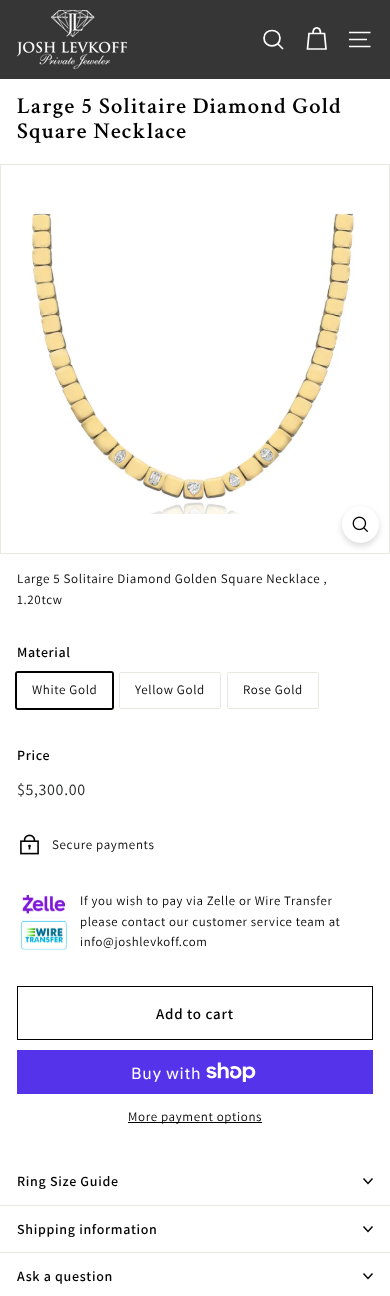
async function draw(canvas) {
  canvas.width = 390
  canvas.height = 1296
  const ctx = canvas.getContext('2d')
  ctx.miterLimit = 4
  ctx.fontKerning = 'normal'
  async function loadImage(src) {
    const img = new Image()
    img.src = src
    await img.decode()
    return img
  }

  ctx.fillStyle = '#fff'
  ctx.fillRect(0, 0, 390, 1296)
  ctx.fillStyle = '#363636'
  ctx.fillRect(0, 0, 390, 79)
  ctx.drawImage(await loadImage('image0.png'), 17, 10, 110, 59)
  ctx.beginPath()
  ctx.moveTo(280, 38)
  ctx.bezierCurveTo(280, 48.5, 264, 48.5, 264, 38)
  ctx.bezierCurveTo(264, 28, 280, 28, 280, 38)
  ctx.closePath()
  ctx.moveTo(283, 49)
  ctx.lineTo(277.5, 43.5)
  ctx.strokeStyle = '#fff'
  ctx.lineWidth = 1.7
  ctx.stroke()
  ctx.beginPath()
  ctx.moveTo(313, 33.5)
  ctx.bezierCurveTo(313, 26, 320.5, 26, 320.5, 33.5)
  ctx.moveTo(309, 33.5)
  ctx.lineTo(324.5, 33.5)
  ctx.lineTo(326, 49)
  ctx.lineTo(307.5, 49)
  ctx.closePath()
  ctx.stroke()
  ctx.beginPath()
  ctx.moveTo(349, 32.5)
  ctx.lineTo(370.5, 32.5)
  ctx.moveTo(349, 39.5)
  ctx.lineTo(367, 39.5)
  ctx.moveTo(349, 46.5)
  ctx.lineTo(370.5, 46.5)
  ctx.stroke()
  ctx.letterSpacing = '1.1px'
  ctx.font = '600 22.7px Crimson Text'
  ctx.fillStyle = '#000'
  ctx.fillText('Large 5 Solitaire Diamond Gold', 17, 113)
  ctx.fillText('Square Necklace', 17, 138)
  ctx.strokeStyle = '#e8e8e1'
  ctx.lineWidth = 1
  ctx.strokeRect(0.5, 164.5, 389, 389)
  ctx.drawImage(await loadImage('image1.png'), 31, 212, 324, 302)
  ctx.fillStyle = '#00000026'
  ctx.filter = 'blur(3px)'
  ctx.beginPath()
  ctx.roundRect(342, 509, 37, 37, 18.5)
  ctx.fill()
  ctx.filter = 'none'
  ctx.fillStyle = '#fff'
  ctx.beginPath()
  ctx.arc(360.5, 524.5, 18.5, 0, 2 * Math.PI)
  ctx.fill()
  ctx.drawImage(await loadImage('image2.png'), 352, 516, 17, 17)
  ctx.letterSpacing = '0.65px'
  ctx.font = '13px Assistant'
  ctx.fillStyle = '#000'
  ctx.fillText('Large 5 Solitaire Diamond Golden Square Necklace ,', 17, 583)
  ctx.fillText('1.20tcw', 17, 604)
  ctx.font = '600 14px Assistant'
  ctx.fillText('Material', 17, 657)
  ctx.beginPath()
  ctx.roundRect(16, 672, 97, 37, 2)
  ctx.strokeStyle = '#000'
  ctx.lineWidth = 2
  ctx.stroke()
  ctx.fillStyle = '#fff'
  ctx.beginPath()
  ctx.roundRect(17, 673, 95, 35, 1)
  ctx.fill()
  ctx.font = '13px Assistant'
  ctx.fillStyle = '#000'
  ctx.fillText('White Gold', 32, 694)
  ctx.beginPath()
  ctx.roundRect(119.5, 672.5, 101, 36, 1.5)
  ctx.strokeStyle = '#e8e8e1'
  ctx.lineWidth = 1
  ctx.stroke()
  ctx.fillStyle = '#fff'
  ctx.beginPath()
  ctx.roundRect(120, 673, 100, 35, 1)
  ctx.fill()
  ctx.fillStyle = '#000'
  ctx.fillText('Yellow Gold', 135, 694)
  ctx.beginPath()
  ctx.roundRect(227.5, 672.5, 91, 36, 1.5)
  ctx.stroke()
  ctx.fillStyle = '#fff'
  ctx.beginPath()
  ctx.roundRect(228, 673, 90, 35, 1)
  ctx.fill()
  ctx.fillStyle = '#000'
  ctx.fillText('Rose Gold', 243, 694)
  ctx.font = '600 14px Assistant'
  ctx.fillText('Price', 17, 760)
  ctx.font = '16px Assistant'
  ctx.fillStyle = '#1c1d1d'
  ctx.fillText('$5,300.00', 17, 795)
  ctx.drawImage(await loadImage('image3.png'), 20, 834, 19, 21)
  ctx.font = '13px Assistant'
  ctx.fillStyle = '#000'
  ctx.fillText('Secure payments', 52, 849)
  ctx.drawImage(await loadImage('image4.png'), 21, 895, 46, 55)
  ctx.font = '12.8px Assistant'
  ctx.fillText('If you wish to pay via Zelle or Wire Transfer', 80, 905)
  ctx.fillText('please contact our customer service team at', 80, 926)
  ctx.fillText('info@joshlevkoff.com', 80, 946)
  ctx.strokeStyle = '#000'
  ctx.strokeRect(17.5, 986.5, 355, 53)
  ctx.letterSpacing = '0.75px'
  ctx.font = '600 15px Assistant'
  ctx.fillText('Add to cart', 156, 1019)
  ctx.fillStyle = '#5433eb'
  ctx.fillRect(17, 1050, 356, 44)
  ctx.letterSpacing = '0.65px'
  ctx.font = '16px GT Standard'
  ctx.fillStyle = '#fff'
  ctx.fillText('Buy with', 131, 1079)
  ctx.drawImage(await loadImage('image5.png'), 206, 1062, 50, 20)
  ctx.fillStyle = '#000'
  ctx.fillRect(128, 1122, 134, 1)
  ctx.font = '13px Assistant'
  ctx.fillText('More payment options', 128, 1121)
  ctx.fillStyle = '#e8e8e1'
  ctx.fillRect(0, 1205, 390, 1)
  ctx.letterSpacing = '0.7px'
  ctx.font = '600 14px Assistant'
  ctx.fillStyle = '#000'
  ctx.fillText('Ring Size Guide', 17, 1186)
  ctx.beginPath()
  ctx.moveTo(363.5, 1178.5)
  ctx.lineTo(368, 1183.5)
  ctx.lineTo(372.5, 1178.5)
  ctx.lineWidth = 1.4
  ctx.stroke()
  ctx.fillStyle = '#e8e8e1'
  ctx.fillRect(0, 1252, 390, 1)
  ctx.fillStyle = '#000'
  ctx.fillText('Shipping information', 17, 1234)
  ctx.beginPath()
  ctx.moveTo(363.5, 1226.5)
  ctx.lineTo(368, 1231.5)
  ctx.lineTo(372.5, 1226.5)
  ctx.stroke()
  ctx.fillText('Ask a question', 17, 1281)
  ctx.beginPath()
  ctx.moveTo(363.5, 1273.5)
  ctx.lineTo(368, 1278.5)
  ctx.lineTo(372.5, 1273.5)
  ctx.stroke()
}

draw(document.querySelector('canvas'))
